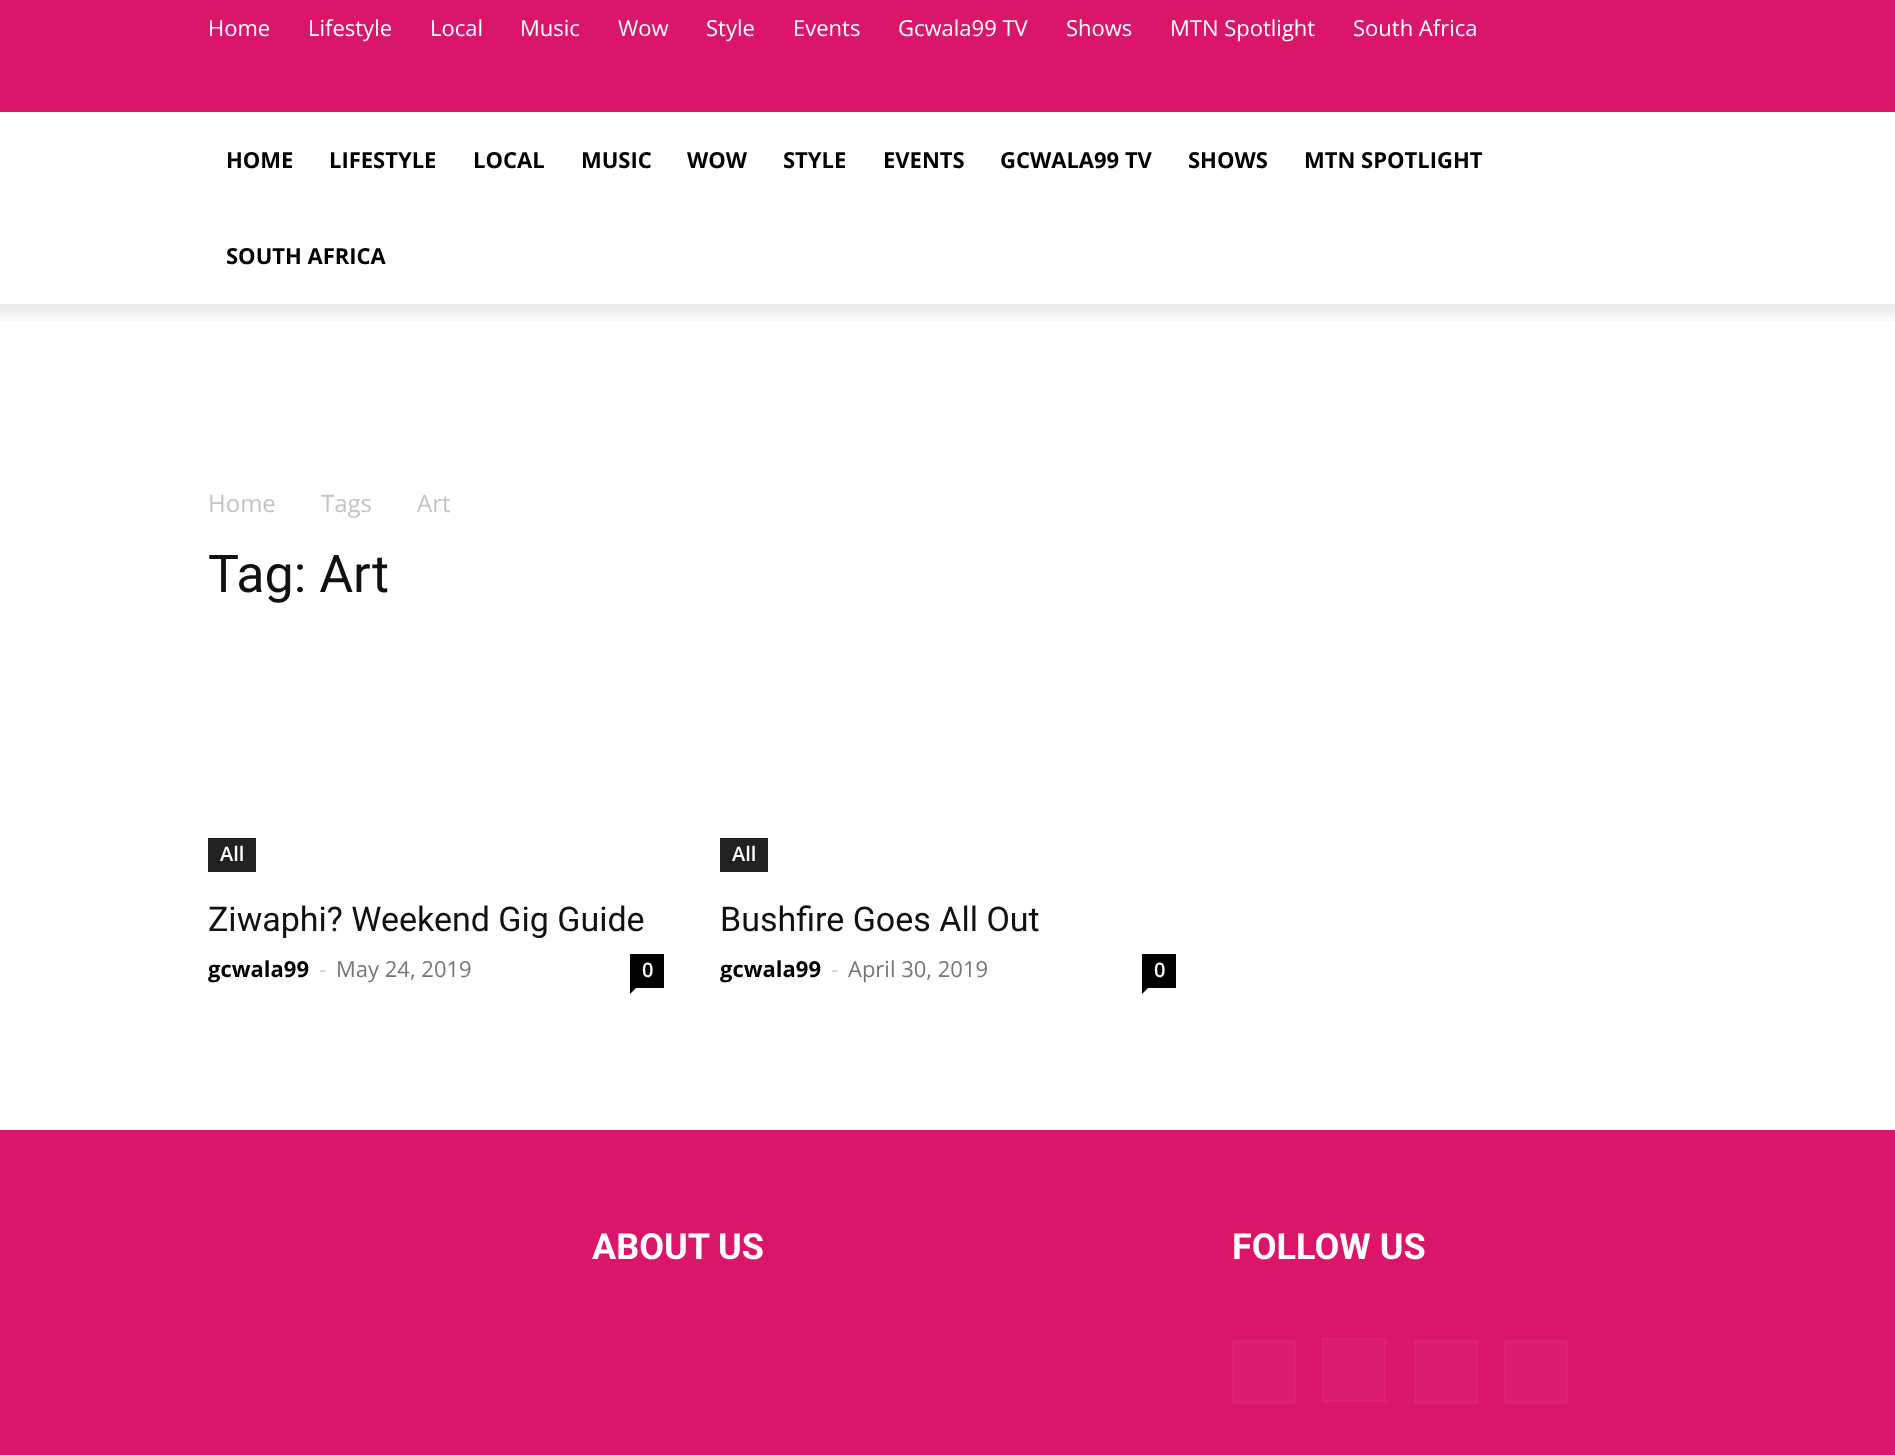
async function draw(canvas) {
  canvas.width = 1895
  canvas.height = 1455
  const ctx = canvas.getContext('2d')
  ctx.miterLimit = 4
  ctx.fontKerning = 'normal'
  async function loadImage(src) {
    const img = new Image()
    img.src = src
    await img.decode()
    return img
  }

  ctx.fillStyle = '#fff'
  ctx.fillRect(0, 0, 1895, 1455)
  ctx.fillStyle = '#db156a'
  ctx.fillRect(0, 0, 1895, 112)
  ctx.font = '22px Open Sans'
  ctx.fillStyle = '#fff'
  ctx.fillText('Home', 208, 36)
  ctx.fillText('Lifestyle', 308, 36)
  ctx.fillText('Local', 430, 36)
  ctx.fillText('Music', 520, 36)
  ctx.fillText('Wow', 618, 36)
  ctx.fillText('Style', 706, 36)
  ctx.fillText('Events', 793, 36)
  ctx.fillText('Gcwala99 TV', 898, 36)
  ctx.fillText('Shows', 1066, 36)
  ctx.fillText('MTN Spotlight', 1170, 36)
  ctx.fillText('South Africa', 1353, 36)
  ctx.font = 'bold 22px Open Sans'
  ctx.fillStyle = '#000'
  ctx.fillText('HOME', 226, 168)
  ctx.fillText('LIFESTYLE', 329, 168)
  ctx.fillText('LOCAL', 473, 168)
  ctx.fillText('MUSIC', 581, 168)
  ctx.fillText('WOW', 687, 168)
  ctx.fillText('STYLE', 783, 168)
  ctx.fillText('EVENTS', 883, 168)
  ctx.fillText('GCWALA99 TV', 1000, 168)
  ctx.fillText('SHOWS', 1188, 168)
  ctx.fillText('MTN SPOTLIGHT', 1304, 168)
  ctx.fillText('SOUTH AFRICA', 226, 264)
  ctx.drawImage(await loadImage('image0.png'), 0, 304, 1895, 17)
  ctx.font = '24px Open Sans'
  ctx.fillStyle = '#c3c3c3'
  ctx.fillText('Home', 208, 512)
  ctx.fillText('Tags', 321, 512)
  ctx.fillText('Art', 417, 512)
  ctx.font = '52px Roboto'
  ctx.fillStyle = '#111'
  ctx.fillText('Tag: Art', 208, 592)
  ctx.fillStyle = '#222'
  ctx.fillRect(208, 838, 48, 34)
  ctx.font = '600 20px Open Sans'
  ctx.fillStyle = '#fff'
  ctx.fillText('All', 220, 861)
  ctx.font = '34px Roboto'
  ctx.fillStyle = '#111'
  ctx.fillText('Ziwaphi? Weekend Gig Guide', 208, 931)
  ctx.font = 'bold 22px Open Sans'
  ctx.fillStyle = '#000'
  ctx.fillText('gcwala99', 208, 977)
  ctx.font = '22px Open Sans'
  ctx.fillStyle = '#ccc'
  ctx.fillText('-', 319, 977)
  ctx.fillStyle = '#767676'
  ctx.fillText('May 24, 2019', 336, 977)
  ctx.fillStyle = '#000'
  ctx.fillRect(630, 954, 34, 34)
  ctx.font = '600 20px Open Sans'
  ctx.fillStyle = '#fff'
  ctx.fillText('0', 642, 977)
  ctx.fillStyle = '#000'
  ctx.beginPath()
  ctx.moveTo(630, 988)
  ctx.lineTo(636, 988)
  ctx.lineTo(630, 994)
  ctx.closePath()
  ctx.fill()
  ctx.fillStyle = '#222'
  ctx.fillRect(720, 838, 48, 34)
  ctx.fillStyle = '#fff'
  ctx.fillText('All', 732, 861)
  ctx.font = '34px Roboto'
  ctx.fillStyle = '#111'
  ctx.fillText('Bushfire Goes All Out', 720, 931)
  ctx.font = 'bold 22px Open Sans'
  ctx.fillStyle = '#000'
  ctx.fillText('gcwala99', 720, 977)
  ctx.font = '22px Open Sans'
  ctx.fillStyle = '#ccc'
  ctx.fillText('-', 831, 977)
  ctx.fillStyle = '#767676'
  ctx.fillText('April 30, 2019', 848, 977)
  ctx.fillStyle = '#000'
  ctx.fillRect(1142, 954, 34, 34)
  ctx.font = '600 20px Open Sans'
  ctx.fillStyle = '#fff'
  ctx.fillText('0', 1154, 977)
  ctx.fillStyle = '#000'
  ctx.beginPath()
  ctx.moveTo(1142, 988)
  ctx.lineTo(1148, 988)
  ctx.lineTo(1142, 994)
  ctx.closePath()
  ctx.fill()
  ctx.fillStyle = '#db156a'
  ctx.fillRect(0, 1130, 1895, 325)
  ctx.font = 'bold 36px Roboto'
  ctx.fillStyle = '#fff'
  ctx.fillText('ABOUT US', 592, 1259)
  ctx.fillText('FOLLOW US', 1232, 1259)
  ctx.fillStyle = '#dc1c6e'
  ctx.beginPath()
  ctx.rect(1233, 1341, 62, 62)
  ctx.fill()
  ctx.strokeStyle = '#dd2372'
  ctx.lineWidth = 2
  ctx.stroke()
  ctx.beginPath()
  ctx.rect(1323, 1339, 62, 62)
  ctx.fill()
  ctx.stroke()
  ctx.beginPath()
  ctx.rect(1415, 1341, 62, 62)
  ctx.fill()
  ctx.stroke()
  ctx.beginPath()
  ctx.rect(1505, 1341, 62, 62)
  ctx.fill()
  ctx.stroke()
}

draw(document.querySelector('canvas'))
